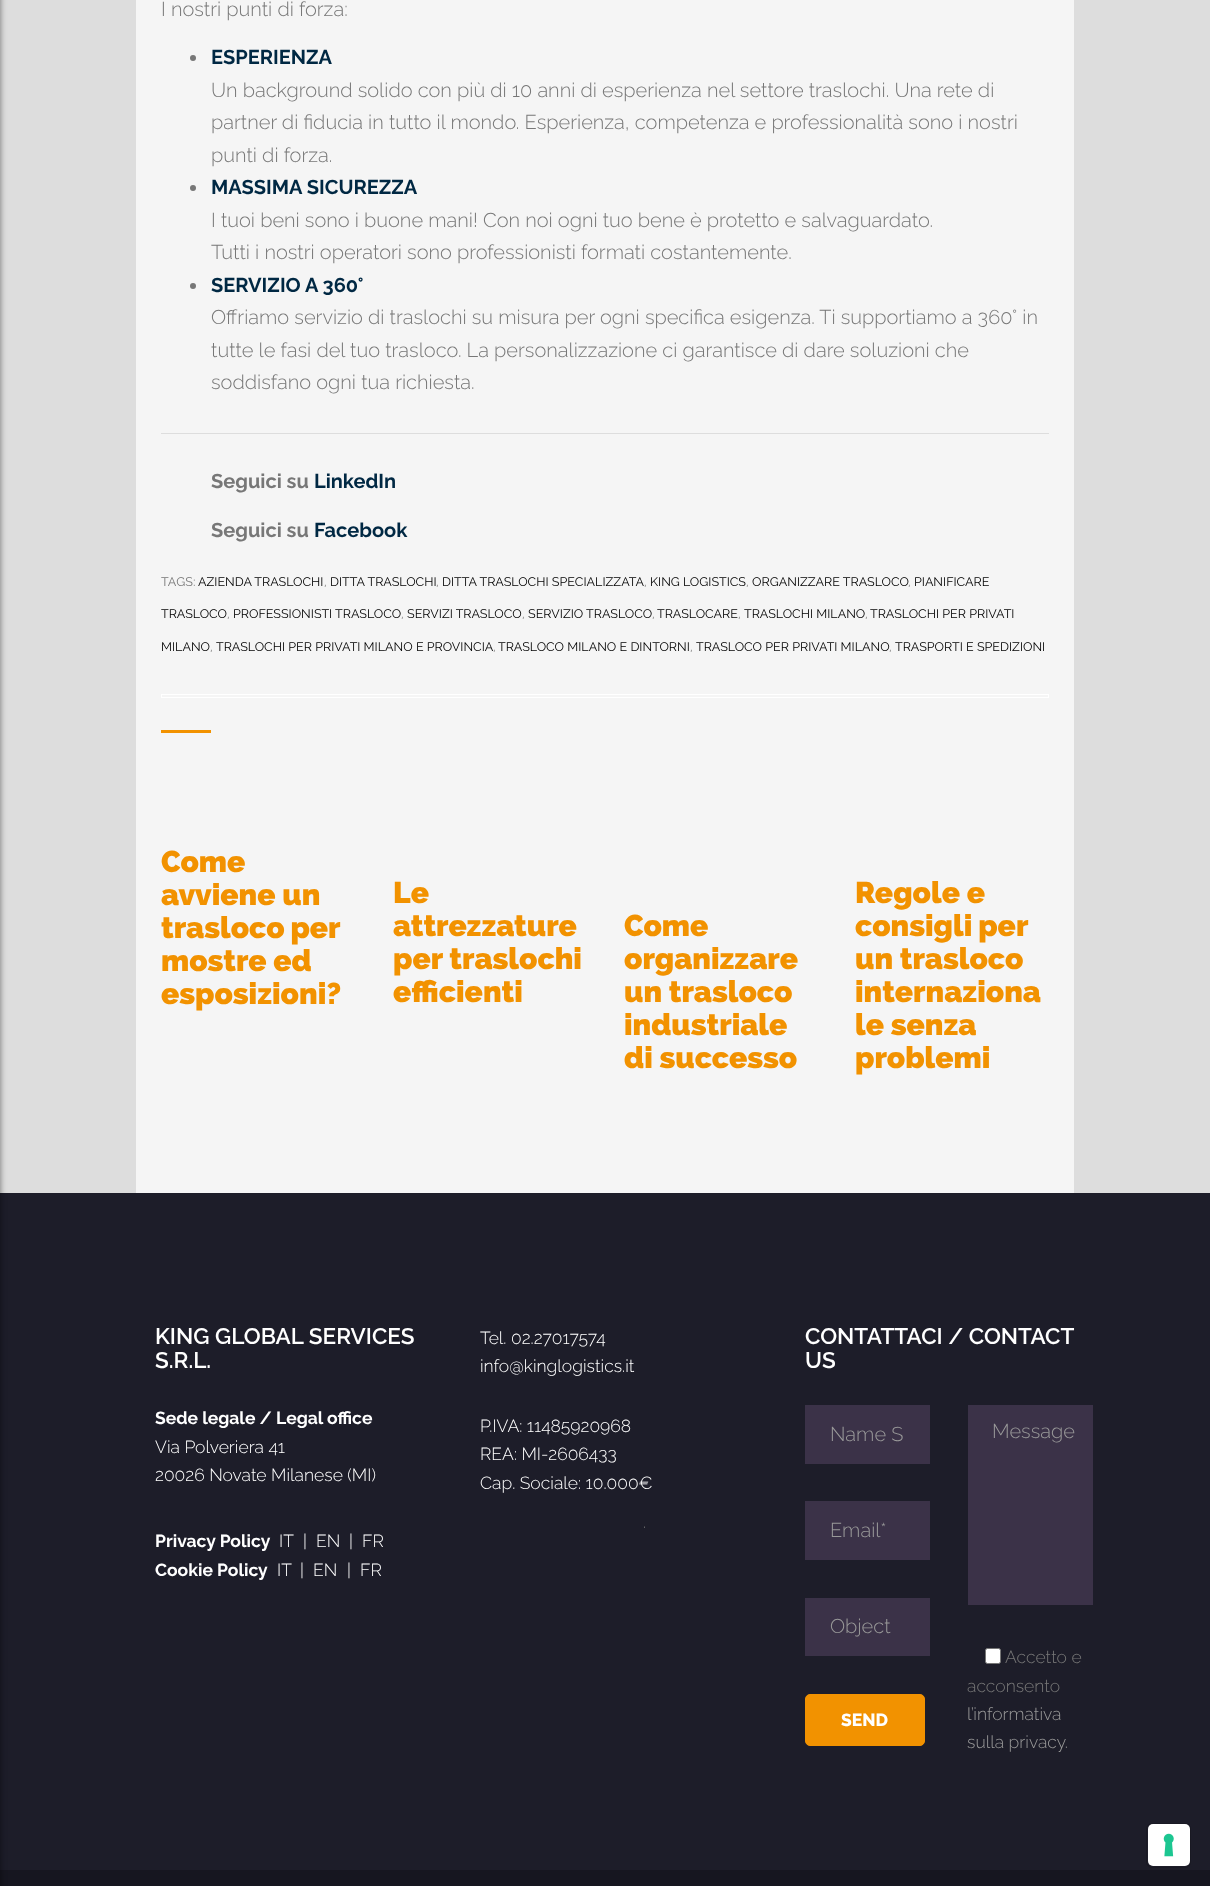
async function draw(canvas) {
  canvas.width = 1210
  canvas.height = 1886
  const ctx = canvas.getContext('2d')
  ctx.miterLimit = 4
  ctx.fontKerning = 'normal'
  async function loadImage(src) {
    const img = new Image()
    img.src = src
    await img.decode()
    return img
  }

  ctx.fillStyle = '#ddd'
  ctx.fillRect(0, 0, 1210, 1886)
  ctx.fillStyle = '#1d1d29'
  ctx.fillRect(0, 1193, 1210, 677)
  ctx.fillStyle = '#161620'
  ctx.fillRect(0, 1870, 1210, 16)
  ctx.fillStyle = '#00000080'
  ctx.filter = 'blur(3px)'
  ctx.beginPath()
  ctx.rect(-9, -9, 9, 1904)
  ctx.fill()
  ctx.filter = 'none'
  ctx.fillStyle = '#f5f5f5'
  ctx.fillRect(136, 0, 938, 1193)
  ctx.font = '300 20px Raleway'
  ctx.fillStyle = '#777'
  ctx.fillText('I nostri punti di forza:', 161, 16)
  ctx.beginPath()
  ctx.arc(193, 58, 3, 0, 2 * Math.PI)
  ctx.fill()
  ctx.font = 'bold 20px Raleway'
  ctx.fillStyle = '#002843'
  ctx.fillText('ESPERIENZA', 211, 64)
  ctx.font = '300 20px Raleway'
  ctx.fillStyle = '#777'
  ctx.fillText('Un background solido con più di 10 anni di esperienza nel settore traslochi. Una rete di', 211, 97)
  ctx.fillText('partner di fiducia in tutto il mondo. Esperienza, competenza e professionalità sono i nostri', 211, 129)
  ctx.fillText('punti di forza.', 211, 162)
  ctx.beginPath()
  ctx.arc(193, 188, 3, 0, 2 * Math.PI)
  ctx.fill()
  ctx.font = 'bold 20px Raleway'
  ctx.fillStyle = '#002843'
  ctx.fillText('MASSIMA SICUREZZA', 211, 194)
  ctx.font = '300 20px Raleway'
  ctx.fillStyle = '#777'
  ctx.fillText('I tuoi beni sono i buone mani! Con noi ogni tuo bene è protetto e salvaguardato.', 211, 227)
  ctx.fillText('Tutti i nostri operatori sono professionisti formati costantemente.', 211, 259)
  ctx.beginPath()
  ctx.arc(193, 286, 3, 0, 2 * Math.PI)
  ctx.fill()
  ctx.font = 'bold 20px Raleway'
  ctx.fillStyle = '#002843'
  ctx.fillText('SERVIZIO A 360°', 211, 292)
  ctx.font = '300 20px Raleway'
  ctx.fillStyle = '#777'
  ctx.fillText('Offriamo servizio di traslochi su misura per ogni specifica esigenza. Ti supportiamo a 360° in', 211, 324)
  ctx.fillText('tutte le fasi del tuo trasloco. La personalizzazione ci garantisce di dare soluzioni che', 211, 357)
  ctx.fillText('soddisfano ogni tua richiesta.', 211, 389)
  ctx.fillStyle = '#ddd'
  ctx.fillRect(161, 433, 888, 1)
  ctx.font = 'bold 20px Raleway'
  ctx.fillStyle = '#777'
  ctx.fillText('Seguici su', 211, 488)
  ctx.fillStyle = '#002843'
  ctx.fillText('LinkedIn', 314, 488)
  ctx.fillStyle = '#777'
  ctx.fillText('Seguici su', 211, 537)
  ctx.fillStyle = '#002843'
  ctx.fillText('Facebook', 314, 537)
  ctx.font = '12.5px Raleway'
  ctx.fillStyle = '#777'
  ctx.fillText('TAGS:', 161, 586)
  ctx.fillStyle = '#000'
  ctx.fillText('AZIENDA TRASLOCHI', 198, 586)
  ctx.fillStyle = '#777'
  ctx.fillText(',', 324, 586)
  ctx.fillStyle = '#000'
  ctx.fillText('DITTA TRASLOCHI', 330, 586)
  ctx.fillStyle = '#777'
  ctx.fillText(',', 436, 586)
  ctx.fillStyle = '#000'
  ctx.fillText('DITTA TRASLOCHI SPECIALIZZATA', 442, 586)
  ctx.fillStyle = '#777'
  ctx.fillText(',', 644, 586)
  ctx.fillStyle = '#000'
  ctx.fillText('KING LOGISTICS', 650, 586)
  ctx.fillStyle = '#777'
  ctx.fillText(',', 746, 586)
  ctx.fillStyle = '#000'
  ctx.fillText('ORGANIZZARE TRASLOCO', 752, 586)
  ctx.fillStyle = '#777'
  ctx.fillText(',', 908, 586)
  ctx.fillStyle = '#000'
  ctx.fillText('PIANIFICARE', 914, 586)
  ctx.fillText('TRASLOCO', 161, 618)
  ctx.fillStyle = '#777'
  ctx.fillText(',', 227, 618)
  ctx.fillStyle = '#000'
  ctx.fillText('PROFESSIONISTI TRASLOCO', 233, 618)
  ctx.fillStyle = '#777'
  ctx.fillText(',', 401, 618)
  ctx.fillStyle = '#000'
  ctx.fillText('SERVIZI TRASLOCO', 407, 618)
  ctx.fillStyle = '#777'
  ctx.fillText(',', 522, 618)
  ctx.fillStyle = '#000'
  ctx.fillText('SERVIZIO TRASLOCO', 528, 618)
  ctx.fillStyle = '#777'
  ctx.fillText(',', 652, 618)
  ctx.fillStyle = '#000'
  ctx.fillText('TRASLOCARE', 657, 618)
  ctx.fillStyle = '#777'
  ctx.fillText(',', 738, 618)
  ctx.fillStyle = '#000'
  ctx.fillText('TRASLOCHI MILANO', 744, 618)
  ctx.fillStyle = '#777'
  ctx.fillText(',', 865, 618)
  ctx.fillStyle = '#000'
  ctx.fillText('TRASLOCHI PER PRIVATI', 870, 618)
  ctx.fillText('MILANO', 161, 651)
  ctx.fillStyle = '#777'
  ctx.fillText(',', 210, 651)
  ctx.fillStyle = '#000'
  ctx.fillText('TRASLOCHI PER PRIVATI MILANO E PROVINCIA', 216, 651)
  ctx.fillStyle = '#777'
  ctx.fillText(',', 493, 651)
  ctx.fillStyle = '#000'
  ctx.fillText('TRASLOCO MILANO E DINTORNI', 498, 651)
  ctx.fillStyle = '#777'
  ctx.fillText(',', 690, 651)
  ctx.fillStyle = '#000'
  ctx.fillText('TRASLOCO PER PRIVATI MILANO', 696, 651)
  ctx.fillStyle = '#777'
  ctx.fillText(',', 889, 651)
  ctx.fillStyle = '#000'
  ctx.fillText('TRASPORTI E SPEDIZIONI', 895, 651)
  ctx.strokeStyle = '#fff'
  ctx.strokeRect(161.5, 694.5, 887, 3)
  ctx.fillStyle = '#f29200'
  ctx.fillRect(161, 730, 50, 3)
  ctx.font = '900 30px Raleway'
  ctx.fillText('Come', 161, 872)
  ctx.fillText('avviene un', 161, 905)
  ctx.wordSpacing = '-1px'
  ctx.fillText('trasloco per', 161, 938)
  ctx.wordSpacing = '0px'
  ctx.fillText('mostre ed', 161, 971)
  ctx.fillText('esposizioni?', 161, 1004)
  ctx.fillText('Le', 393, 903)
  ctx.fillText('attrezzature', 393, 936)
  ctx.fillText('per traslochi', 393, 969)
  ctx.fillText('efficienti', 393, 1002)
  ctx.fillText('Come', 624, 936)
  ctx.fillText('organizzare', 624, 969)
  ctx.fillText('un trasloco', 624, 1002)
  ctx.fillText('industriale', 624, 1035)
  ctx.fillText('di successo', 624, 1068)
  ctx.fillText('Regole e', 855, 903)
  ctx.wordSpacing = '-1px'
  ctx.fillText('consigli per', 855, 936)
  ctx.wordSpacing = '0px'
  ctx.fillText('un trasloco', 855, 969)
  ctx.fillText('internaziona', 855, 1002)
  ctx.fillText('le senza', 855, 1035)
  ctx.fillText('problemi', 855, 1068)
  ctx.font = '600 22.5px Raleway'
  ctx.fillStyle = '#fff'
  ctx.fillText('KING GLOBAL SERVICES', 155, 1344)
  ctx.fillText('S.R.L.', 155, 1368)
  ctx.font = 'bold 17.5px Raleway'
  ctx.fillText('Sede legale / Legal office', 155, 1424)
  ctx.font = '300 17.5px Raleway'
  ctx.fillText('Via Polveriera 41', 155, 1453)
  ctx.fillText('20026 Novate Milanese (MI)', 155, 1481)
  ctx.font = 'bold 17.5px Raleway'
  ctx.fillText('Privacy Policy', 155, 1547)
  ctx.font = '300 17.5px Raleway'
  ctx.fillText('IT', 279, 1547)
  ctx.fillText('|', 303, 1547)
  ctx.fillText('EN', 316, 1547)
  ctx.fillText('|', 349, 1547)
  ctx.fillText('FR', 362, 1547)
  ctx.font = 'bold 17.5px Raleway'
  ctx.fillText('Cookie Policy', 155, 1576)
  ctx.font = '300 17.5px Raleway'
  ctx.fillText('IT', 277, 1576)
  ctx.fillText('|', 300, 1576)
  ctx.fillText('EN', 313, 1576)
  ctx.fillText('|', 347, 1576)
  ctx.fillText('FR', 360, 1576)
  ctx.fillText('Tel. 02.27017574', 480, 1344)
  ctx.fillText('info@kinglogistics.it', 480, 1372)
  ctx.fillText('P.IVA: 11485920968', 480, 1432)
  ctx.fillText('REA: MI-2606433', 480, 1460)
  ctx.fillText('Cap. Sociale: 10.000€', 480, 1489)
  ctx.fillStyle = '#777'
  ctx.fillText('.', 643, 1528)
  ctx.font = '600 22.5px Raleway'
  ctx.fillStyle = '#fff'
  ctx.fillText('CONTATTACI / CONTACT', 805, 1344)
  ctx.fillText('US', 805, 1368)
  ctx.fillStyle = '#3b3248'
  ctx.fillRect(805, 1405, 125, 59)
  ctx.font = '300 20px Raleway'
  ctx.fillStyle = '#999'
  ctx.fillText('Name S', 830, 1441)
  ctx.fillStyle = '#3b3248'
  ctx.fillRect(805, 1501, 125, 59)
  ctx.fillStyle = '#999'
  ctx.fillText('Email*', 830, 1537)
  ctx.fillStyle = '#3b3248'
  ctx.fillRect(805, 1598, 125, 58)
  ctx.fillStyle = '#999'
  ctx.fillText('Object', 830, 1633)
  ctx.fillStyle = '#f29200'
  ctx.beginPath()
  ctx.roundRect(805.5, 1694.5, 119, 51, 4.5)
  ctx.fill()
  ctx.strokeStyle = '#f29200'
  ctx.stroke()
  ctx.font = '800 17.5px Raleway'
  ctx.fillStyle = '#fff'
  ctx.fillText('SEND', 841, 1726)
  ctx.fillStyle = '#3b3248'
  ctx.fillRect(968, 1405, 125, 200)
  ctx.font = '300 20px Raleway'
  ctx.fillStyle = '#999'
  ctx.fillText('Message', 992, 1438)
  ctx.fillStyle = '#fff'
  ctx.beginPath()
  ctx.roundRect(985.5, 1648.5, 15, 15, 2)
  ctx.fill()
  ctx.strokeStyle = '#767676'
  ctx.stroke()
  ctx.font = '300 17.5px Raleway'
  ctx.fillStyle = '#777'
  ctx.fillText('Accetto e', 1005, 1663)
  ctx.fillText('acconsento', 967, 1692)
  ctx.fillStyle = '#999'
  ctx.fillText('l’informativa', 967, 1720)
  ctx.fillText('sulla privacy.', 967, 1748)
  ctx.beginPath()
  ctx.roundRect(1146.5, 1823.5, 44, 44, 5.5)
  ctx.strokeStyle = '#191923'
  ctx.stroke()
  ctx.fillStyle = '#fff'
  ctx.beginPath()
  ctx.roundRect(1148, 1824, 42, 42, 5)
  ctx.fill()
  ctx.drawImage(await loadImage('image0.png'), 1163, 1833, 11, 24)
}

draw(document.querySelector('canvas'))
